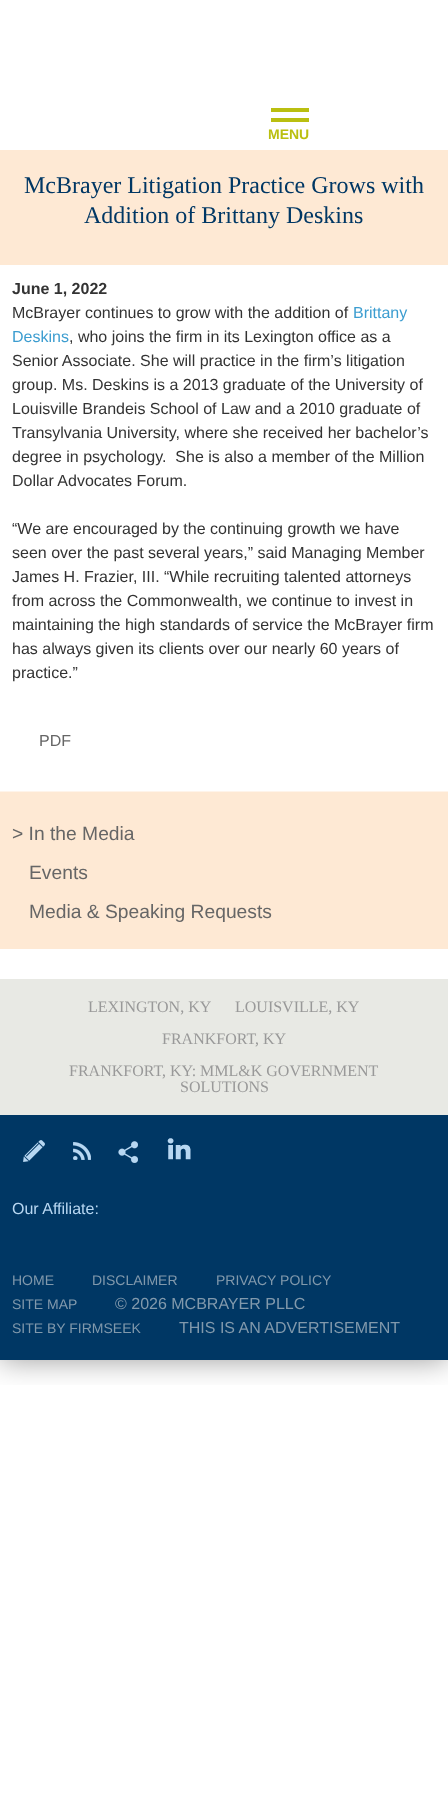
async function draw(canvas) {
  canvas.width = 448
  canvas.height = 1794
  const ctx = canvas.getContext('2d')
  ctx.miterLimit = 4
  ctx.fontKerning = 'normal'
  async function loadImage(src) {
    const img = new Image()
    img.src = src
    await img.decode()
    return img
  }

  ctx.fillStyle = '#fff'
  ctx.fillRect(0, 0, 448, 1794)
  ctx.save()
  ctx.beginPath()
  ctx.rect(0, 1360, 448, 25)
  ctx.clip()
  ctx.fillStyle = '#00000066'
  ctx.filter = 'blur(15px)'
  ctx.beginPath()
  ctx.rect(0, 0, 448, 1360)
  ctx.fill()
  ctx.filter = 'none'
  ctx.restore()
  ctx.fillStyle = '#babf10'
  ctx.fillRect(271, 118, 38, 4)
  ctx.fillRect(271, 108, 38, 4)
  ctx.font = 'bold 14px Liberation Sans'
  ctx.fillText('MENU', 268, 139)
  ctx.fillStyle = '#fee9d4'
  ctx.fillRect(0, 150, 448, 115)
  ctx.font = '24px Liberation Serif'
  ctx.fillStyle = '#003764'
  ctx.fillText('McBrayer Litigation Practice Grows with', 24, 193)
  ctx.fillText('Addition of Brittany Deskins', 84, 223)
  ctx.font = 'bold 16px Liberation Sans'
  ctx.fillStyle = '#333'
  ctx.fillText('June 1, 2022', 12, 294)
  ctx.font = '16px Liberation Sans'
  ctx.fillText('McBrayer continues to grow with the addition of', 12, 318)
  ctx.fillStyle = '#3c9dd0'
  ctx.fillText('Brittany', 353, 318)
  ctx.fillText('Deskins', 12, 342)
  ctx.fillStyle = '#333'
  ctx.fillText(', who joins the firm in its Lexington office as a', 69, 342)
  ctx.fillText('Senior Associate. She will practice in the firm’s litigation', 12, 366)
  ctx.fillText('group. Ms. Deskins is a 2013 graduate of the University of', 12, 390)
  ctx.fillText('Louisville Brandeis School of Law and a 2010 graduate of', 12, 414)
  ctx.fillText('Transylvania University, where she received her bachelor’s', 12, 438)
  ctx.fillText('degree in psychology.  She is also a member of the Million', 12, 462)
  ctx.fillText('Dollar Advocates Forum.', 12, 486)
  ctx.fillText('“We are encouraged by the continuing growth we have', 12, 534)
  ctx.fillText('seen over the past several years,” said Managing Member', 12, 558)
  ctx.fillText('James H. Frazier, III. “While recruiting talented attorneys', 12, 582)
  ctx.fillText('from across the Commonwealth, we continue to invest in', 12, 606)
  ctx.fillText('maintaining the high standards of service the McBrayer firm', 12, 630)
  ctx.fillText('has always given its clients over our nearly 60 years of', 12, 654)
  ctx.fillText('practice.”', 12, 678)
  ctx.fillStyle = '#666'
  ctx.fillText('PDF', 39, 746)
  ctx.fillStyle = '#fee9d4'
  ctx.fillRect(0, 792, 448, 157)
  ctx.fillStyle = '#fff4ea'
  ctx.fillRect(0, 791, 448, 1)
  ctx.font = '19.25px Liberation Sans'
  ctx.fillStyle = '#666'
  ctx.fillText('> In the Media', 12, 840)
  ctx.fillText('Events', 29, 879)
  ctx.fillText('Media & Speaking Requests', 29, 918)
  ctx.fillStyle = '#e8e9e4'
  ctx.fillRect(0, 979, 448, 136)
  ctx.font = '16px Liberation Serif'
  ctx.fillStyle = '#999'
  ctx.fillText('LEXINGTON, KY', 88, 1012)
  ctx.fillText('LOUISVILLE, KY', 235, 1012)
  ctx.fillText('FRANKFORT, KY', 162, 1044)
  ctx.fillText('FRANKFORT, KY: MML&K GOVERNMENT', 69, 1076)
  ctx.fillText('SOLUTIONS', 180, 1092)
  ctx.fillStyle = '#003764'
  ctx.fillRect(0, 1115, 448, 245)
  ctx.drawImage(await loadImage('image0.png'), 23, 1140, 22, 22)
  ctx.drawImage(await loadImage('image1.png'), 73, 1142, 18, 18)
  ctx.drawImage(await loadImage('image2.png'), 118, 1141, 20, 22)
  ctx.drawImage(await loadImage('image3.png'), 167, 1138, 24, 22)
  ctx.font = '16px Liberation Sans'
  ctx.fillStyle = '#b7d7f2'
  ctx.fillText('Our Affiliate:', 12, 1214)
  ctx.font = '14px Liberation Sans'
  ctx.fillStyle = '#8199ac'
  ctx.fillText('HOME', 12, 1285)
  ctx.fillText('DISCLAIMER', 92, 1285)
  ctx.fillText('PRIVACY POLICY', 216, 1285)
  ctx.fillText('SITE MAP', 12, 1309)
  ctx.font = '16px Liberation Sans'
  ctx.fillText('© 2026 MCBRAYER PLLC', 115, 1309)
  ctx.font = '14px Liberation Sans'
  ctx.fillText('SITE BY FIRMSEEK', 12, 1333)
  ctx.font = '16px Liberation Sans'
  ctx.fillText('THIS IS AN ADVERTISEMENT', 179, 1333)
}

draw(document.querySelector('canvas'))
